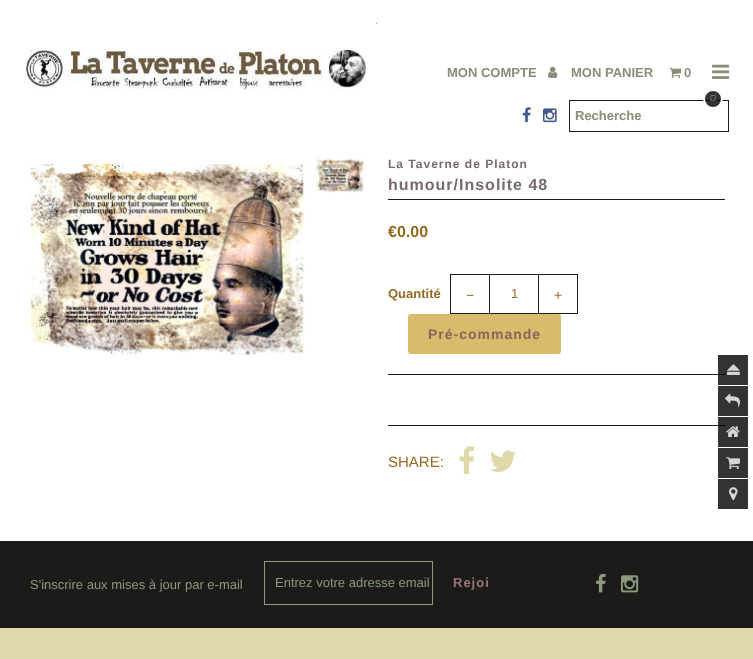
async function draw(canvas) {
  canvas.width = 753
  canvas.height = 659
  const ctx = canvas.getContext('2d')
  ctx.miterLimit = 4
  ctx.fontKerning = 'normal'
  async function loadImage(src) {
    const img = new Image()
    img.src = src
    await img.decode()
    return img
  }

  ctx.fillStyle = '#fff'
  ctx.fillRect(0, 0, 753, 659)
  ctx.fillStyle = '#333'
  ctx.fillRect(718, 417, 30, 30)
  ctx.fillRect(718, 355, 30, 30)
  ctx.font = '11px Liberation Sans'
  ctx.fillStyle = '#c2b35c'
  ctx.fillText('.', 375, 24)
  ctx.drawImage(await loadImage('image0.png'), 24, 50, 342, 40)
  ctx.font = 'bold 13px Liberation Sans'
  ctx.fillStyle = '#878e79'
  ctx.fillText('MON COMPTE', 447, 77)
  ctx.drawImage(await loadImage('image1.png'), 548, 66, 10, 12)
  ctx.fillText('MON PANIER', 571, 77)
  ctx.drawImage(await loadImage('image2.png'), 669, 67, 13, 11)
  ctx.fillText('0', 684, 77)
  ctx.drawImage(await loadImage('image3.png'), 712, 64, 18, 15)
  ctx.drawImage(await loadImage('image4.png'), 522, 107, 9, 16)
  ctx.drawImage(await loadImage('image5.png'), 543, 108, 14, 15)
  ctx.strokeStyle = '#1c1b1a'
  ctx.strokeRect(569.5, 100.5, 159, 31)
  ctx.fillText('Recherche', 575, 120)
  ctx.drawImage(await loadImage('image6.png'), 28, 161, 277, 194)
  ctx.drawImage(await loadImage('image7.png'), 316, 158, 48, 35)
  ctx.letterSpacing = '1px'
  ctx.font = 'bold 12px Liberation Sans'
  ctx.fillStyle = '#796b6b'
  ctx.fillText('La Taverne de Platon', 388, 168)
  ctx.fillStyle = '#1c1b1a'
  ctx.fillRect(388, 199, 337, 1)
  ctx.font = 'bold 16px Liberation Sans'
  ctx.fillStyle = '#796b6b'
  ctx.fillText('humour/Insolite 48', 388, 190)
  ctx.letterSpacing = '0px'
  ctx.fillStyle = '#966c24'
  ctx.fillText('€0.00', 388, 237)
  ctx.fillStyle = '#1c1b1a'
  ctx.fillRect(388, 374, 337, 1)
  ctx.fillStyle = '#060505'
  ctx.fillRect(718, 374, 7, 1)
  ctx.font = 'bold 13px Liberation Sans'
  ctx.fillStyle = '#966c24'
  ctx.fillText('Quantité', 388, 298)
  ctx.strokeRect(450.5, 274.5, 39, 39)
  ctx.letterSpacing = '1px'
  ctx.font = '14px Liberation Sans'
  ctx.fillText('−', 466, 300)
  ctx.strokeRect(489.5, 274.5, 49, 39)
  ctx.letterSpacing = '0px'
  ctx.font = '13px Liberation Sans'
  ctx.fillText('1', 511, 298)
  ctx.strokeRect(538.5, 274.5, 39, 39)
  ctx.letterSpacing = '1px'
  ctx.font = '14px Liberation Sans'
  ctx.fillText('+', 554, 300)
  ctx.fillStyle = '#d8bc6b'
  ctx.beginPath()
  ctx.roundRect(408, 314, 153, 40, 3)
  ctx.fill()
  ctx.font = 'bold 14px Liberation Sans'
  ctx.fillStyle = '#915f5f'
  ctx.fillText('Pré-commande', 428, 339)
  ctx.fillStyle = '#1c1b1a'
  ctx.fillRect(388, 425, 337, 1)
  ctx.fillStyle = '#060505'
  ctx.fillRect(718, 425, 7, 1)
  ctx.letterSpacing = '0px'
  ctx.font = '15px Liberation Sans'
  ctx.fillStyle = '#966c24'
  ctx.fillText('SHARE:', 388, 467)
  ctx.drawImage(await loadImage('image8.png'), 459, 446, 16, 29)
  ctx.drawImage(await loadImage('image9.png'), 490, 450, 26, 22)
  ctx.fillStyle = '#1c1b1a'
  ctx.fillRect(0, 541, 753, 87)
  ctx.font = '13px Liberation Sans'
  ctx.fillStyle = '#899979'
  ctx.fillText('S\'inscrire aux mises à jour par e-mail', 30, 589)
  ctx.strokeStyle = '#899979'
  ctx.strokeRect(264.5, 561.5, 168, 43)
  ctx.fillText('Entrez votre adresse email', 275, 587)
  ctx.save()
  ctx.beginPath()
  ctx.rect(438, 562, 50, 42)
  ctx.clip()
  ctx.letterSpacing = '1px'
  ctx.font = 'bold 13px Liberation Sans'
  ctx.fillStyle = '#997575'
  ctx.fillText('Rejoi', 453, 587)
  ctx.restore()
  ctx.drawImage(await loadImage('image10.png'), 596, 573, 10, 20)
  ctx.drawImage(await loadImage('image11.png'), 621, 575, 18, 18)
  ctx.fillStyle = '#e0d8ab'
  ctx.fillRect(0, 628, 753, 31)
  ctx.fillStyle = '#000000cc'
  ctx.beginPath()
  ctx.arc(713, 99, 9, 0, 2 * Math.PI)
  ctx.fill()
  ctx.strokeStyle = '#fff'
  ctx.lineWidth = 2
  ctx.stroke()
  ctx.drawImage(await loadImage('image12.png'), 710, 95, 6, 6)
  ctx.drawImage(await loadImage('image13.png'), 727, 364, 13, 11)
  ctx.fillStyle = '#333'
  ctx.fillRect(718, 386, 30, 30)
  ctx.drawImage(await loadImage('image14.png'), 725, 393, 15, 14)
  ctx.drawImage(await loadImage('image15.png'), 726, 426, 14, 11)
  ctx.fillRect(718, 448, 30, 30)
  ctx.drawImage(await loadImage('image16.png'), 726, 457, 14, 13)
  ctx.fillRect(718, 479, 30, 30)
  ctx.drawImage(await loadImage('image17.png'), 729, 487, 9, 13)
}

draw(document.querySelector('canvas'))
